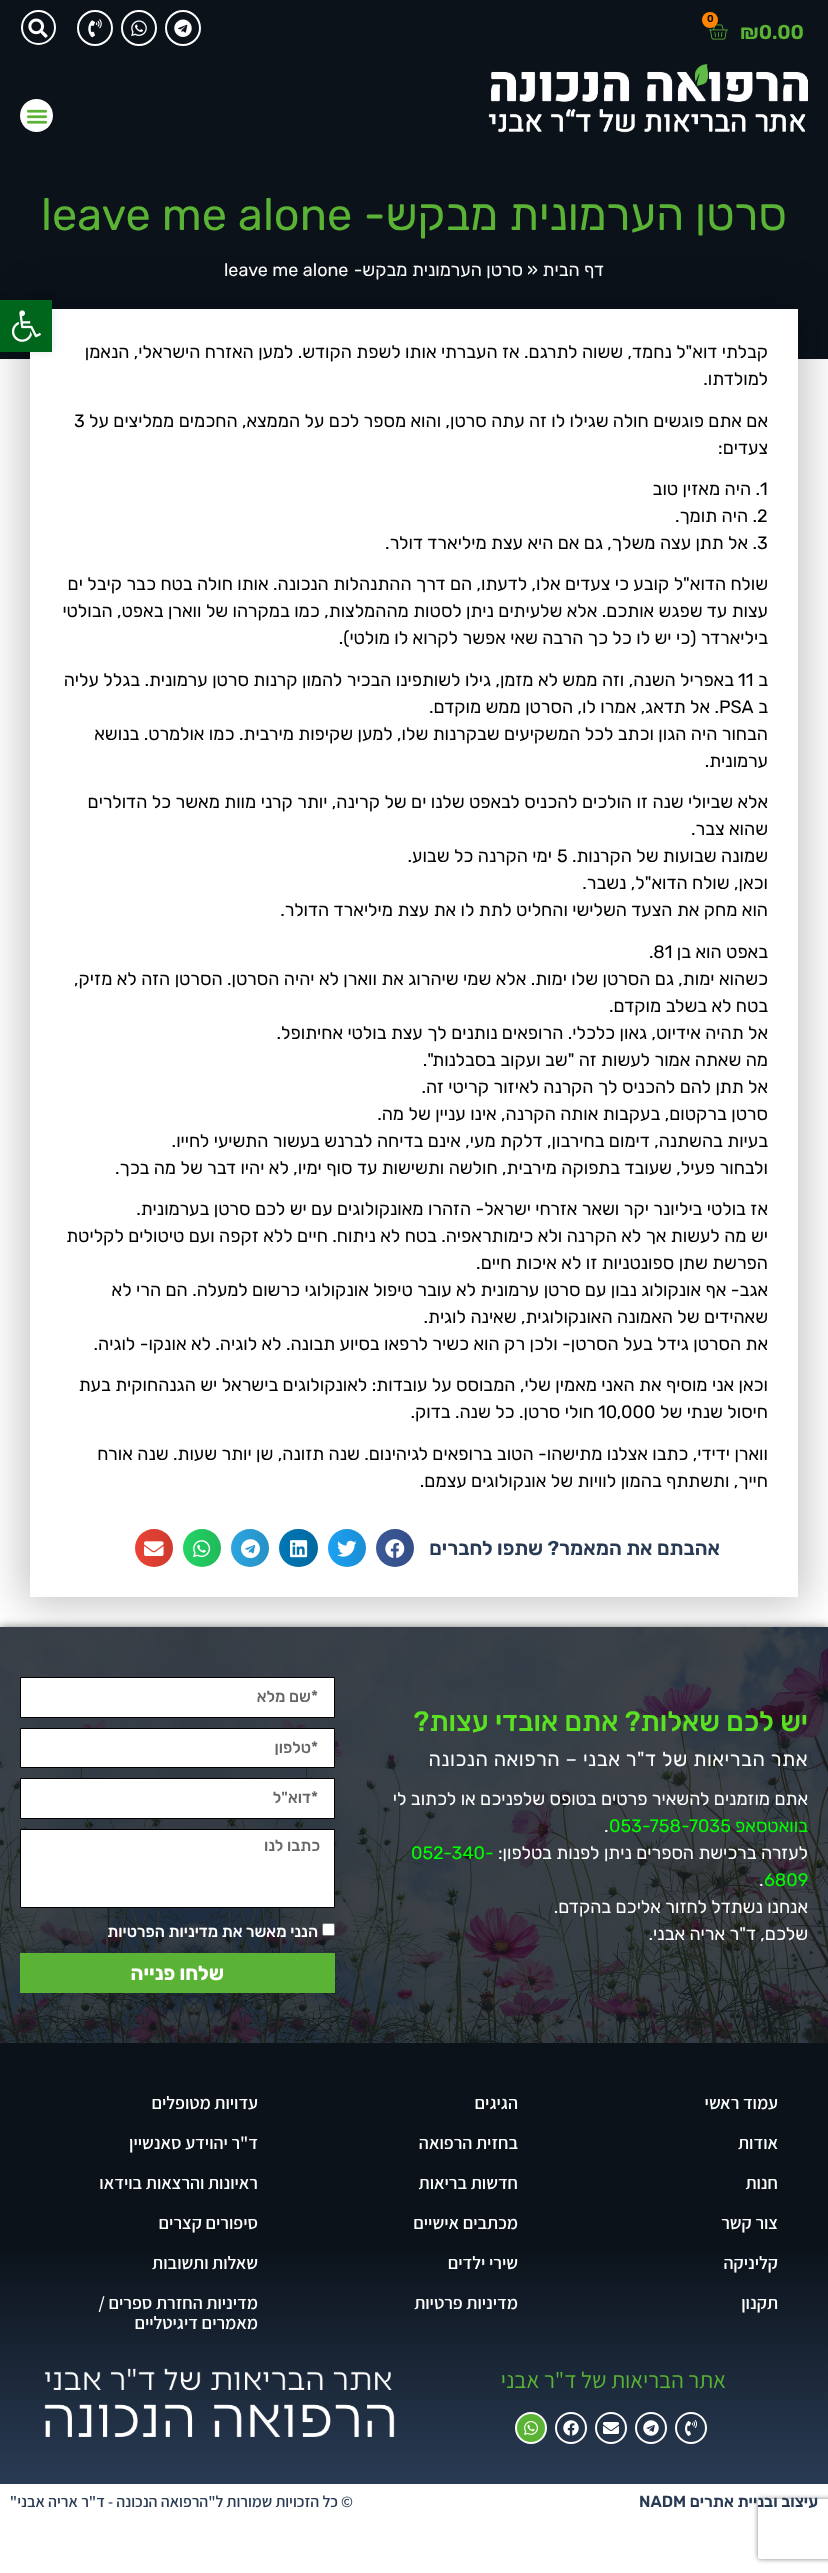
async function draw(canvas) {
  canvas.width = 828
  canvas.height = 2573
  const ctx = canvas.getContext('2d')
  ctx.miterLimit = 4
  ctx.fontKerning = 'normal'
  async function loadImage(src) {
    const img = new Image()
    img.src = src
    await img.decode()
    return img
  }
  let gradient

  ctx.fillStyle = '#fff'
  ctx.fillRect(0, 0, 828, 2573)
  ctx.fillStyle = '#0b121a'
  ctx.fillRect(0, 0, 828, 359)
  ctx.drawImage(await loadImage('image0.png'), 708, 24, 20, 16)
  ctx.fillStyle = '#ff8400'
  ctx.beginPath()
  ctx.arc(710, 20, 8, 0, 2 * Math.PI)
  ctx.fill()
  ctx.font = '600 10px Rubik'
  ctx.fillStyle = '#000'
  ctx.fillText('0', 707, 22)
  ctx.font = '600 20px Rubik'
  ctx.fillStyle = '#5ab334'
  ctx.fillText('₪0.00', 740, 39)
  ctx.beginPath()
  ctx.arc(183, 28, 17, 0, 2 * Math.PI)
  ctx.strokeStyle = '#fff'
  ctx.lineWidth = 2
  ctx.stroke()
  ctx.drawImage(await loadImage('image1.png'), 174, 19, 18, 18)
  ctx.beginPath()
  ctx.arc(139, 28, 17, 0, 2 * Math.PI)
  ctx.stroke()
  ctx.drawImage(await loadImage('image2.png'), 131, 20, 16, 17)
  ctx.beginPath()
  ctx.arc(95, 28, 17, 0, 2 * Math.PI)
  ctx.stroke()
  ctx.drawImage(await loadImage('image3.png'), 88, 19, 14, 19)
  ctx.beginPath()
  ctx.arc(38.5, 27.5, 16.5, 0, 2 * Math.PI)
  ctx.stroke()
  ctx.drawImage(await loadImage('image4.png'), 28, 18, 20, 20)
  ctx.drawImage(await loadImage('image5.png'), 488, 64, 320, 69)
  ctx.fillStyle = '#fff'
  ctx.beginPath()
  ctx.arc(36.5, 115.5, 16.5, 0, 2 * Math.PI)
  ctx.fill()
  ctx.drawImage(await loadImage('image6.png'), 26, 109, 22, 15)
  ctx.direction = 'rtl'
  ctx.font = '45px Rubik'
  ctx.fillStyle = '#5ab334'
  ctx.fillText('סרטן הערמונית מבקש-', 787, 230)
  ctx.direction = 'ltr'
  ctx.fillText('leave me alone', 41, 230)
  ctx.direction = 'rtl'
  ctx.font = '18px Rubik'
  ctx.fillStyle = '#fff'
  ctx.fillText('דף הבית', 604, 276)
  ctx.direction = 'ltr'
  ctx.fillText('»', 527, 276)
  ctx.direction = 'rtl'
  ctx.fillText('סרטן הערמונית מבקש-', 523, 276)
  ctx.direction = 'ltr'
  ctx.fillText('leave me alone', 224, 276)
  ctx.fillStyle = '#0000003d'
  ctx.filter = 'blur(22px)'
  ctx.beginPath()
  ctx.rect(23, 302, 782, 1302)
  ctx.fill()
  ctx.filter = 'none'
  ctx.fillStyle = '#fff'
  ctx.fillRect(30, 309, 768, 1288)
  ctx.direction = 'rtl'
  ctx.fillStyle = '#000'
  ctx.fillText('קבלתי דוא"ל נחמד, ששוה לתרגם. אז העברתי אותו לשפת הקודש. למען האזרח הישראלי, הנאמן', 768, 358)
  ctx.fillText('למולדתו.', 768, 385)
  ctx.fillText('אם אתם פוגשים חולה שגילו לו זה עתה סרטן, והוא מספר לכם על הממצא, החכמים ממליצים על', 768, 427)
  ctx.direction = 'ltr'
  ctx.fillText('3', 74, 427)
  ctx.direction = 'rtl'
  ctx.fillText('צעדים:', 768, 454)
  ctx.direction = 'ltr'
  ctx.fillText('1', 760, 495)
  ctx.direction = 'rtl'
  ctx.fillText('. היה מאזין טוב', 760, 495)
  ctx.direction = 'ltr'
  ctx.fillText('2', 757, 522)
  ctx.direction = 'rtl'
  ctx.fillText('. היה תומך.', 757, 522)
  ctx.direction = 'ltr'
  ctx.fillText('3', 757, 549)
  ctx.direction = 'rtl'
  ctx.fillText('. אל תתן עצה משלך, גם אם היא עצת מיליארד דולר.', 757, 549)
  ctx.fillText('שולח הדוא"ל קובע כי צעדים אלו, לדעתו, הם דרך ההתנהלות הנכונה. אותו חולה בטח כבר קיבל ים', 768, 590)
  ctx.fillText('עצות עד שפגש אותכם. אלא שלעיתים ניתן לסטות מההמלצות, כמו במקרהו של ווארן באפט, הבולטי', 768, 617)
  ctx.fillText('ביליארדר (כי יש לו כל כך הרבה שאי אפשר לקרוא לו מולטי).', 768, 644)
  ctx.fillText('ב', 768, 686)
  ctx.direction = 'ltr'
  ctx.fillText('11', 738, 686)
  ctx.direction = 'rtl'
  ctx.fillText('באפריל השנה, וזה ממש לא מזמן, גילו לשותפינו הבכיר להמון קרנות סרטן ערמונית. בגלל עליה', 734, 686)
  ctx.fillText('ב', 768, 713)
  ctx.direction = 'ltr'
  ctx.fillText('PSA', 719, 713)
  ctx.direction = 'rtl'
  ctx.fillText('. אל תדאג, אמרו לו, הסרטן ממש מוקדם.', 719, 713)
  ctx.fillText('הבחור היה הגון וכתב לכל המשקיעים שבקרנות שלו, למען שקיפות מירבית. כמו אולמרט. בנושא', 768, 740)
  ctx.fillText('ערמונית.', 768, 767)
  ctx.fillText('אלא שביולי שנה זו הולכים להכניס לבאפט שלנו ים של קרינה, יותר קרני מוות מאשר כל הדולרים', 768, 808)
  ctx.fillText('שהוא צבר.', 768, 835)
  ctx.fillText('שמונה שבועות של הקרנות.', 768, 862)
  ctx.direction = 'ltr'
  ctx.fillText('5', 557, 862)
  ctx.direction = 'rtl'
  ctx.fillText('ימי הקרנה כל שבוע.', 552, 862)
  ctx.fillText('וכאן, שולח הדוא"ל, נשבר.', 768, 889)
  ctx.fillText('הוא מחק את הצעד השלישי והחליט לתת לו את עצת מיליארד הדולר.', 768, 916)
  ctx.fillText('באפט הוא בן', 768, 958)
  ctx.direction = 'ltr'
  ctx.fillText('.81', 649, 958)
  ctx.direction = 'rtl'
  ctx.fillText('כשהוא ימות, גם הסרטן שלו ימות. אלא שמי שיהרוג את ווארן לא יהיה הסרטן. הסרטן הזה לא מזיק,', 768, 985)
  ctx.fillText('בטח לא בשלב מוקדם.', 768, 1012)
  ctx.fillText('אל תהיה אידיוט, גאון כלכלי. הרופאים נותנים לך עצת בולטי אחיתופל.', 768, 1039)
  ctx.fillText('מה שאתה אמור לעשות זה "שב ועקוב בסבלנות".', 768, 1066)
  ctx.fillText('אל תתן להם להכניס לך הקרנה לאיזור קריטי זה.', 768, 1093)
  ctx.fillText('סרטן ברקטום, בעקבות אותה הקרנה, אינו עניין של מה.', 768, 1120)
  ctx.fillText('בעיות בהשתנה, דימום בחירבון, דלקת מעי, אינם בדיחה לברנש בעשור התשיעי לחייו.', 768, 1147)
  ctx.fillText('ולבחור פעיל, שעובד בתפוקה מירבית, חולשה ותשישות עד סוף ימיו, לא יהיו דבר של מה בכך.', 768, 1174)
  ctx.fillText('אז בולטי ביליונר יקר ושאר אזרחי ישראל- הזהרו מאונקולוגים עם יש לכם סרטן בערמונית.', 768, 1215)
  ctx.fillText('יש מה לעשות אך לא הקרנה ולא כימותראפיה. בטח לא ניתוח. חיים ללא זקפה ועם טיטולים לקליטת', 768, 1242)
  ctx.fillText('הפרשת שתן ספונטניות זו לא איכות חיים.', 768, 1269)
  ctx.fillText('אגב- אף אונקולוג נבון עם סרטן ערמונית לא עובר טיפול אונקולוגי כרשום למעלה. הם הרי לא', 768, 1296)
  ctx.fillText('שאהידים של האמונה האונקולוגית, שאינה לוגית.', 768, 1323)
  ctx.fillText('את הסרטן גידל בעל הסרטן- ולכן רק הוא כשיר לרפאו בסיוע תבונה. לא לוגיה. לא אונקו- לוגיה.', 768, 1350)
  ctx.fillText('וכאן אני מוסיף את האני מאמין שלי, המבוסס על עובדות: לאונקולוגים בישראל יש הגנהחוקית בעת', 768, 1391)
  ctx.fillText('חיסול שנתי של', 768, 1418)
  ctx.direction = 'ltr'
  ctx.fillText('10,000', 598, 1418)
  ctx.direction = 'rtl'
  ctx.fillText('חולי סרטן. כל שנה. בדוק.', 594, 1418)
  ctx.fillText('ווארן ידידי, כתבו אצלנו מתישהו- הטוב ברופאים לגיהינום. שנה תזונה, שן יותר שעות. שנה אורח', 768, 1460)
  ctx.fillText('חייך, ותשתתף בהמון לוויות של אונקולוגים עצמם.', 768, 1487)
  ctx.font = '600 20px Rubik'
  ctx.fillStyle = '#293b54'
  ctx.fillText('אהבתם את המאמר? שתפו לחברים', 720, 1555)
  ctx.fillStyle = '#3b5998'
  ctx.beginPath()
  ctx.arc(395, 1548, 19, 0, 2 * Math.PI)
  ctx.fill()
  gradient = ctx.createLinearGradient(414, 1548, 376, 1548)
  gradient.addColorStop(0, '#0000001f')
  gradient.addColorStop(1, '#00000000')
  ctx.fillStyle = gradient
  ctx.beginPath()
  ctx.arc(395, 1548, 19, 0, 2 * Math.PI)
  ctx.fill()
  ctx.drawImage(await loadImage('image7.png'), 385, 1539, 20, 19)
  ctx.fillStyle = '#1da1f2'
  ctx.beginPath()
  ctx.arc(347, 1548, 19, 0, 2 * Math.PI)
  ctx.fill()
  gradient = ctx.createLinearGradient(366, 1548, 328, 1548)
  gradient.addColorStop(0, '#0000001f')
  gradient.addColorStop(1, '#00000000')
  ctx.fillStyle = gradient
  ctx.beginPath()
  ctx.arc(347, 1548, 19, 0, 2 * Math.PI)
  ctx.fill()
  ctx.drawImage(await loadImage('image8.png'), 337, 1540, 20, 17)
  ctx.fillStyle = '#0077b5'
  ctx.beginPath()
  ctx.roundRect(279, 1529, 39, 38, 19)
  ctx.fill()
  gradient = ctx.createLinearGradient(318, 1548, 279, 1548)
  gradient.addColorStop(0, '#0000001f')
  gradient.addColorStop(1, '#00000000')
  ctx.fillStyle = gradient
  ctx.beginPath()
  ctx.roundRect(279, 1529, 39, 38, 19)
  ctx.fill()
  ctx.drawImage(await loadImage('image9.png'), 290, 1540, 18, 18)
  ctx.fillStyle = '#2ca5e0'
  ctx.beginPath()
  ctx.arc(250, 1548, 19, 0, 2 * Math.PI)
  ctx.fill()
  gradient = ctx.createLinearGradient(269, 1548, 231, 1548)
  gradient.addColorStop(0, '#0000001f')
  gradient.addColorStop(1, '#00000000')
  ctx.fillStyle = gradient
  ctx.beginPath()
  ctx.arc(250, 1548, 19, 0, 2 * Math.PI)
  ctx.fill()
  ctx.drawImage(await loadImage('image10.png'), 241, 1539, 19, 20)
  ctx.fillStyle = '#25d366'
  ctx.beginPath()
  ctx.arc(202, 1548, 19, 0, 2 * Math.PI)
  ctx.fill()
  gradient = ctx.createLinearGradient(221, 1548, 183, 1548)
  gradient.addColorStop(0, '#0000001f')
  gradient.addColorStop(1, '#00000000')
  ctx.fillStyle = gradient
  ctx.beginPath()
  ctx.arc(202, 1548, 19, 0, 2 * Math.PI)
  ctx.fill()
  ctx.drawImage(await loadImage('image11.png'), 193, 1540, 18, 18)
  ctx.fillStyle = '#ea4335'
  ctx.beginPath()
  ctx.arc(154, 1548, 19, 0, 2 * Math.PI)
  ctx.fill()
  gradient = ctx.createLinearGradient(173, 1548, 135, 1548)
  gradient.addColorStop(0, '#0000001f')
  gradient.addColorStop(1, '#00000000')
  ctx.fillStyle = gradient
  ctx.beginPath()
  ctx.arc(154, 1548, 19, 0, 2 * Math.PI)
  ctx.fill()
  ctx.drawImage(await loadImage('image12.png'), 144, 1541, 20, 15)
  ctx.fillStyle = '#0000001a'
  ctx.filter = 'blur(5px)'
  ctx.beginPath()
  ctx.rect(0, 300, 52, 52)
  ctx.fill()
  ctx.filter = 'none'
  ctx.fillStyle = '#00661b'
  ctx.fillRect(0, 300, 52, 52)
  ctx.drawImage(await loadImage('image13.png'), 11, 310, 30, 32)
  ctx.fillStyle = '#00000080'
  ctx.filter = 'blur(5px)'
  ctx.beginPath()
  ctx.rect(0, 1627, 828, 416)
  ctx.fill()
  ctx.filter = 'none'
  ctx.drawImage(await loadImage('image14.png'), 0, 1627, 828, 416)
  ctx.font = '500 28px Rubik'
  ctx.fillStyle = '#5ae121'
  ctx.fillText('יש לכם שאלות? אתם אובדי עצות?', 808, 1731)
  ctx.letterSpacing = '0.5px'
  ctx.font = '20px Rubik'
  ctx.fillStyle = '#fff'
  ctx.fillText('אתר הבריאות של ד"ר אבני – הרפואה הנכונה', 808, 1766)
  ctx.letterSpacing = '0px'
  ctx.font = '18px Rubik'
  ctx.fillText('אתם מוזמנים להשאיר פרטים בטופס שלפניכם או לכתוב לי', 808, 1805)
  ctx.fillStyle = '#0f0'
  ctx.fillText('בוואטסאפ', 808, 1832)
  ctx.direction = 'ltr'
  ctx.fillText('053-758-7035', 609, 1832)
  ctx.fillStyle = '#fff'
  ctx.fillText('.', 604, 1832)
  ctx.direction = 'rtl'
  ctx.fillText('לעזרה ברכישת הספרים ניתן לפנות בטלפון:', 808, 1859)
  ctx.direction = 'ltr'
  ctx.fillStyle = '#0f0'
  ctx.fillText('052-340-', 411, 1859)
  ctx.fillText('6809', 764, 1886)
  ctx.fillStyle = '#fff'
  ctx.fillText('.', 759, 1886)
  ctx.direction = 'rtl'
  ctx.fillText('אנחנו נשתדל לחזור אליכם בהקדם.', 808, 1913)
  ctx.fillText('שלכם, ד"ר אריה אבני.', 808, 1940)
  ctx.beginPath()
  ctx.rect(20.5, 1677.5, 314, 40)
  ctx.fill()
  ctx.strokeStyle = '#000'
  ctx.lineWidth = 1
  ctx.stroke()
  ctx.font = '500 16px Rubik'
  ctx.fillStyle = '#666'
  ctx.fillText('*שם מלא', 318, 1702)
  ctx.fillStyle = '#fff'
  ctx.beginPath()
  ctx.rect(20.5, 1728.5, 314, 39)
  ctx.fill()
  ctx.stroke()
  ctx.fillStyle = '#666'
  ctx.fillText('*טלפון', 318, 1753)
  ctx.fillStyle = '#fff'
  ctx.beginPath()
  ctx.rect(20.5, 1778.5, 314, 40)
  ctx.fill()
  ctx.stroke()
  ctx.fillStyle = '#666'
  ctx.fillText('*דוא"ל', 318, 1803)
  ctx.fillStyle = '#fff'
  ctx.beginPath()
  ctx.rect(20.5, 1829.5, 314, 78)
  ctx.fill()
  ctx.stroke()
  ctx.fillStyle = '#666'
  ctx.fillText('כתבו לנו', 320, 1851)
  ctx.fillStyle = '#fff'
  ctx.beginPath()
  ctx.roundRect(322.5, 1923.5, 12, 12, 1.5)
  ctx.fill()
  ctx.strokeStyle = '#767676'
  ctx.stroke()
  ctx.fillText('הנני מאשר את מדיניות הפרטיות', 318, 1937)
  ctx.fillStyle = '#5ab334'
  ctx.fillRect(20, 1953, 315, 40)
  ctx.font = 'bold 20px Rubik'
  ctx.fillStyle = '#fff'
  ctx.fillText('שלחו פנייה', 224, 1980)
  ctx.save()
  ctx.beginPath()
  ctx.moveTo(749, 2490)
  ctx.lineTo(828, 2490)
  ctx.lineTo(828, 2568)
  ctx.lineTo(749, 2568)
  ctx.closePath()
  ctx.moveTo(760, 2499)
  ctx.lineTo(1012, 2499)
  ctx.bezierCurveTo(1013, 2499, 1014, 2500, 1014, 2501)
  ctx.lineTo(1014, 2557)
  ctx.bezierCurveTo(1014, 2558, 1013, 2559, 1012, 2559)
  ctx.lineTo(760, 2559)
  ctx.bezierCurveTo(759, 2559, 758, 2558, 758, 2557)
  ctx.lineTo(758, 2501)
  ctx.bezierCurveTo(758, 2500, 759, 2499, 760, 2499)
  ctx.closePath()
  ctx.clip('evenodd')
  ctx.fillStyle = '#808080'
  ctx.filter = 'blur(2.5px)'
  ctx.beginPath()
  ctx.roundRect(758, 2499, 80, 60, 2)
  ctx.fill()
  ctx.filter = 'none'
  ctx.restore()
  gradient = ctx.createLinearGradient(414, 2043, 414, 2484)
  gradient.addColorStop(0.46, '#0b121a')
  gradient.addColorStop(1, '#293b54')
  ctx.fillStyle = gradient
  ctx.fillRect(0, 2043, 828, 441)
  ctx.font = '600 18px Assistant'
  ctx.fillStyle = '#fff'
  ctx.fillText('עמוד ראשי', 778, 2109)
  ctx.fillText('אודות', 778, 2149)
  ctx.fillText('חנות', 778, 2189)
  ctx.fillText('צור קשר', 778, 2229)
  ctx.fillText('קליניקה', 778, 2269)
  ctx.fillText('תקנון', 778, 2309)
  ctx.fillText('הגיגים', 518, 2109)
  ctx.fillText('בחזית הרפואה', 518, 2149)
  ctx.fillText('חדשות בריאות', 518, 2189)
  ctx.fillText('מכתבים אישיים', 518, 2229)
  ctx.fillText('שירי ילדים', 518, 2269)
  ctx.fillText('מדיניות פרטיות', 518, 2309)
  ctx.fillText('עדויות מטופלים', 258, 2109)
  ctx.fillText('ד"ר יהוידע סאנשיין', 258, 2149)
  ctx.fillText('ראיונות והרצאות בוידאו', 258, 2189)
  ctx.fillText('סיפורים קצרים', 258, 2229)
  ctx.fillText('שאלות ותשובות', 258, 2269)
  ctx.fillText('מדיניות החזרת ספרים /', 258, 2309)
  ctx.fillText('מאמרים דיגיטליים', 258, 2329)
  ctx.font = '23px Assistant'
  ctx.fillStyle = '#5ab334'
  ctx.fillText('אתר הבריאות של ד"ר אבני', 726, 2388)
  ctx.beginPath()
  ctx.arc(691, 2428, 15, 0, 2 * Math.PI)
  ctx.strokeStyle = '#fff'
  ctx.lineWidth = 2
  ctx.stroke()
  ctx.drawImage(await loadImage('image15.png'), 685, 2420, 12, 16)
  ctx.beginPath()
  ctx.arc(651, 2428, 15, 0, 2 * Math.PI)
  ctx.stroke()
  ctx.drawImage(await loadImage('image16.png'), 643, 2420, 16, 16)
  ctx.beginPath()
  ctx.arc(611, 2428, 15, 0, 2 * Math.PI)
  ctx.stroke()
  ctx.drawImage(await loadImage('image17.png'), 603, 2422, 16, 12)
  ctx.beginPath()
  ctx.arc(571, 2428, 15, 0, 2 * Math.PI)
  ctx.stroke()
  ctx.drawImage(await loadImage('image18.png'), 563, 2420, 16, 16)
  ctx.beginPath()
  ctx.arc(531, 2428, 15, 0, 2 * Math.PI)
  ctx.fill()
  ctx.stroke()
  ctx.drawImage(await loadImage('image19.png'), 524, 2421, 14, 14)
  ctx.drawImage(await loadImage('image20.png'), 44, 2368, 351, 69)
  ctx.font = '600 16px Rubik'
  ctx.fillStyle = '#293b54'
  ctx.fillText('עיצוב ובניית אתרים', 818, 2507)
  ctx.direction = 'ltr'
  ctx.fillText('NADM', 639, 2507)
  ctx.direction = 'rtl'
  ctx.font = '600 16px Assistant'
  ctx.fillText('© כל הזכויות שמורות ל"הרפואה הנכונה - ד"ר אריה אבני"', 353, 2507)
}

draw(document.querySelector('canvas'))
